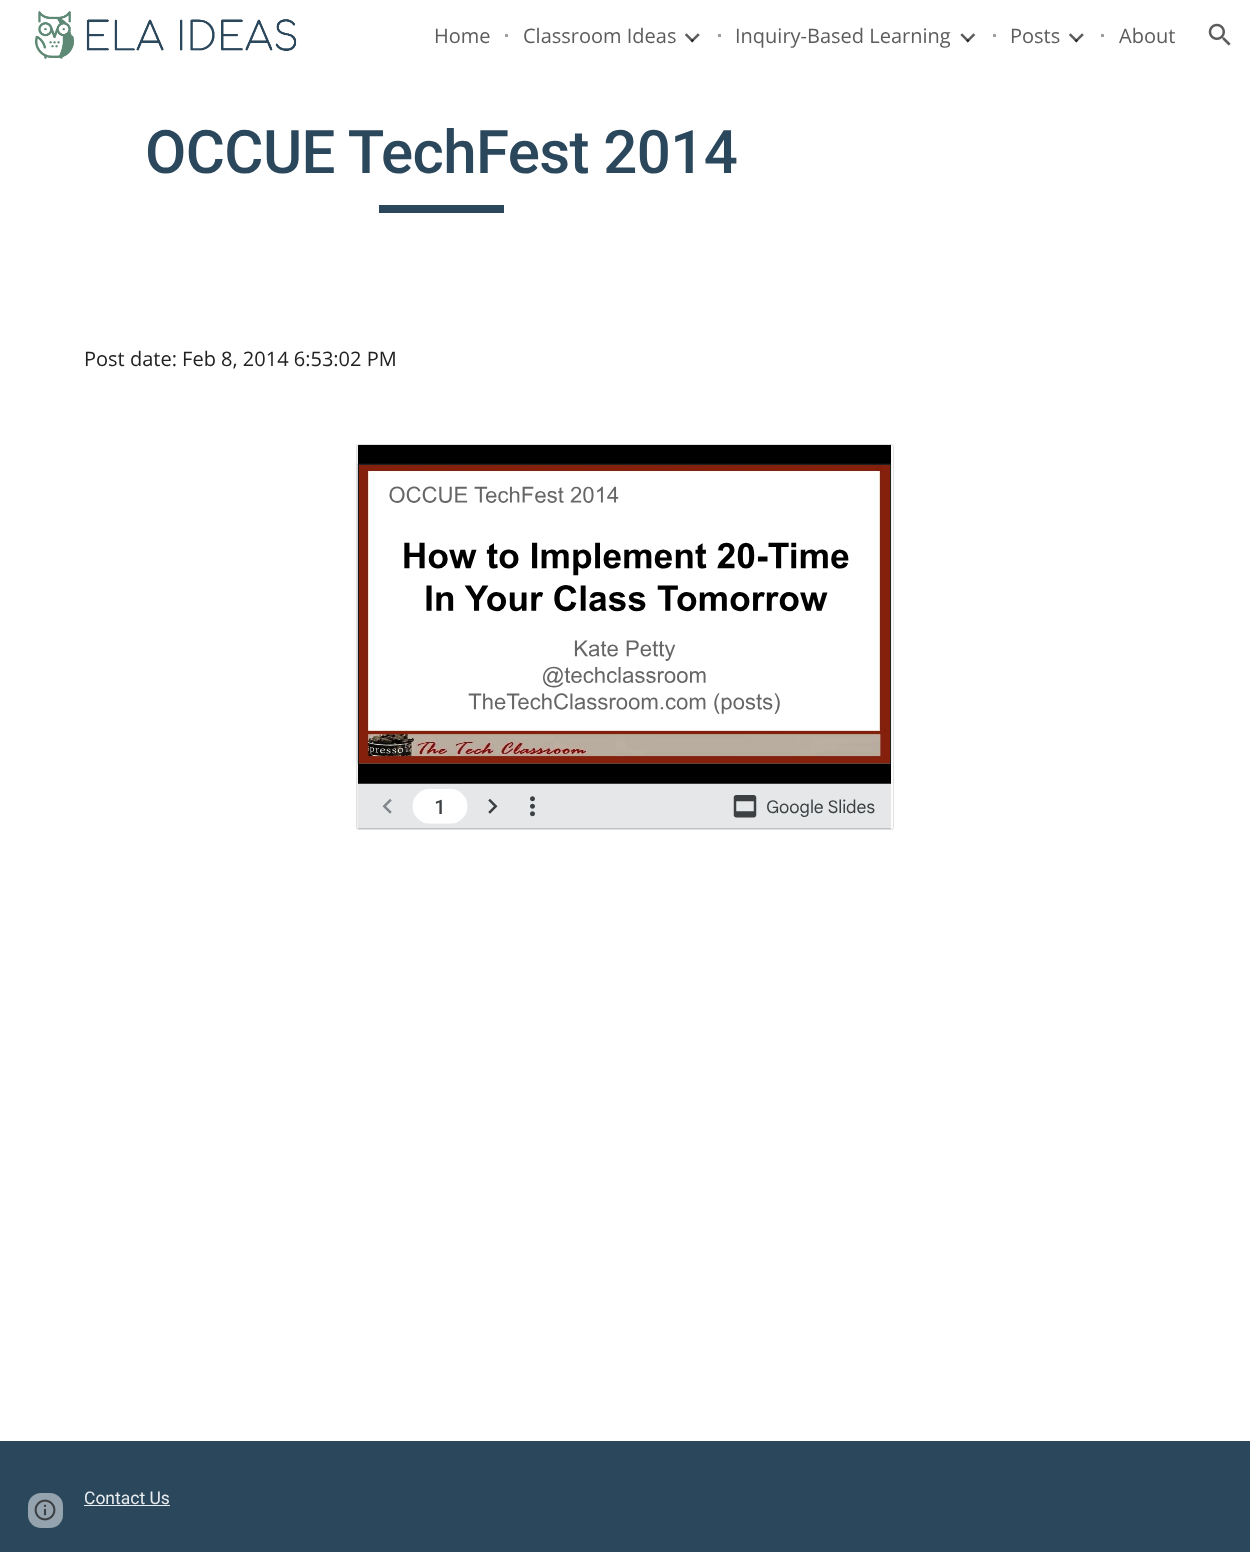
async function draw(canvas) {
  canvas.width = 1250
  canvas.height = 1552
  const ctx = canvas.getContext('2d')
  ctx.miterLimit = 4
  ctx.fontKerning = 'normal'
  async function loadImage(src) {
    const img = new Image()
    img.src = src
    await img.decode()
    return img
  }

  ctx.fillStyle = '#fff'
  ctx.fillRect(0, 0, 1250, 1552)
  ctx.drawImage(await loadImage('image0.png'), 34, 11, 263, 48)
  ctx.font = '20px Open Sans'
  ctx.fillStyle = '#5c5c5c'
  ctx.fillText('Home', 434, 43)
  ctx.fillStyle = '#9e9e9e'
  ctx.fillRect(505, 34, 3, 3)
  ctx.fillStyle = '#5c5c5c'
  ctx.fillText('Classroom Ideas', 523, 43)
  ctx.drawImage(await loadImage('image1.png'), 685, 33, 15, 10)
  ctx.fillStyle = '#9e9e9e'
  ctx.fillRect(718, 34, 3, 3)
  ctx.fillStyle = '#5c5c5c'
  ctx.fillText('Inquiry-Based Learning', 735, 43)
  ctx.drawImage(await loadImage('image2.png'), 960, 33, 16, 10)
  ctx.fillStyle = '#9e9e9e'
  ctx.fillRect(993, 34, 3, 3)
  ctx.fillStyle = '#5c5c5c'
  ctx.fillText('Posts', 1010, 43)
  ctx.drawImage(await loadImage('image3.png'), 1069, 33, 15, 10)
  ctx.fillStyle = '#9e9e9e'
  ctx.fillRect(1101, 34, 3, 3)
  ctx.fillStyle = '#5c5c5c'
  ctx.fillText('About', 1119, 43)
  ctx.drawImage(await loadImage('image4.png'), 1208, 23, 23, 23)
  ctx.letterSpacing = '-0.6px'
  ctx.font = '500 60px Roboto'
  ctx.fillStyle = '#2b475c'
  ctx.fillText('OCCUE TechFest 2014', 145, 173)
  ctx.fillRect(379, 205, 125, 8)
  ctx.letterSpacing = '0px'
  ctx.font = '20px Open Sans'
  ctx.fillStyle = '#212121'
  ctx.fillText('Post date: Feb 8, 2014 6:53:02 PM', 84, 366)
  ctx.beginPath()
  ctx.roundRect(356.5, 444.5, 537, 385, 2)
  ctx.strokeStyle = '#e0e0e0'
  ctx.stroke()
  ctx.drawImage(await loadImage('image5.png'), 357, 445, 535, 384)
  ctx.fillStyle = '#2b475c'
  ctx.fillRect(0, 1441, 1250, 111)
  ctx.fillStyle = '#95a3ae'
  ctx.beginPath()
  ctx.roundRect(28, 1493, 35, 35, 13)
  ctx.fill()
  ctx.drawImage(await loadImage('image6.png'), 34, 1499, 22, 22)
  ctx.font = '17.5px Roboto'
  ctx.fillStyle = '#eaedef'
  ctx.fillText('Contact Us', 84, 1504)
  ctx.fillRect(84, 1505, 86, 1)
}

draw(document.querySelector('canvas'))
